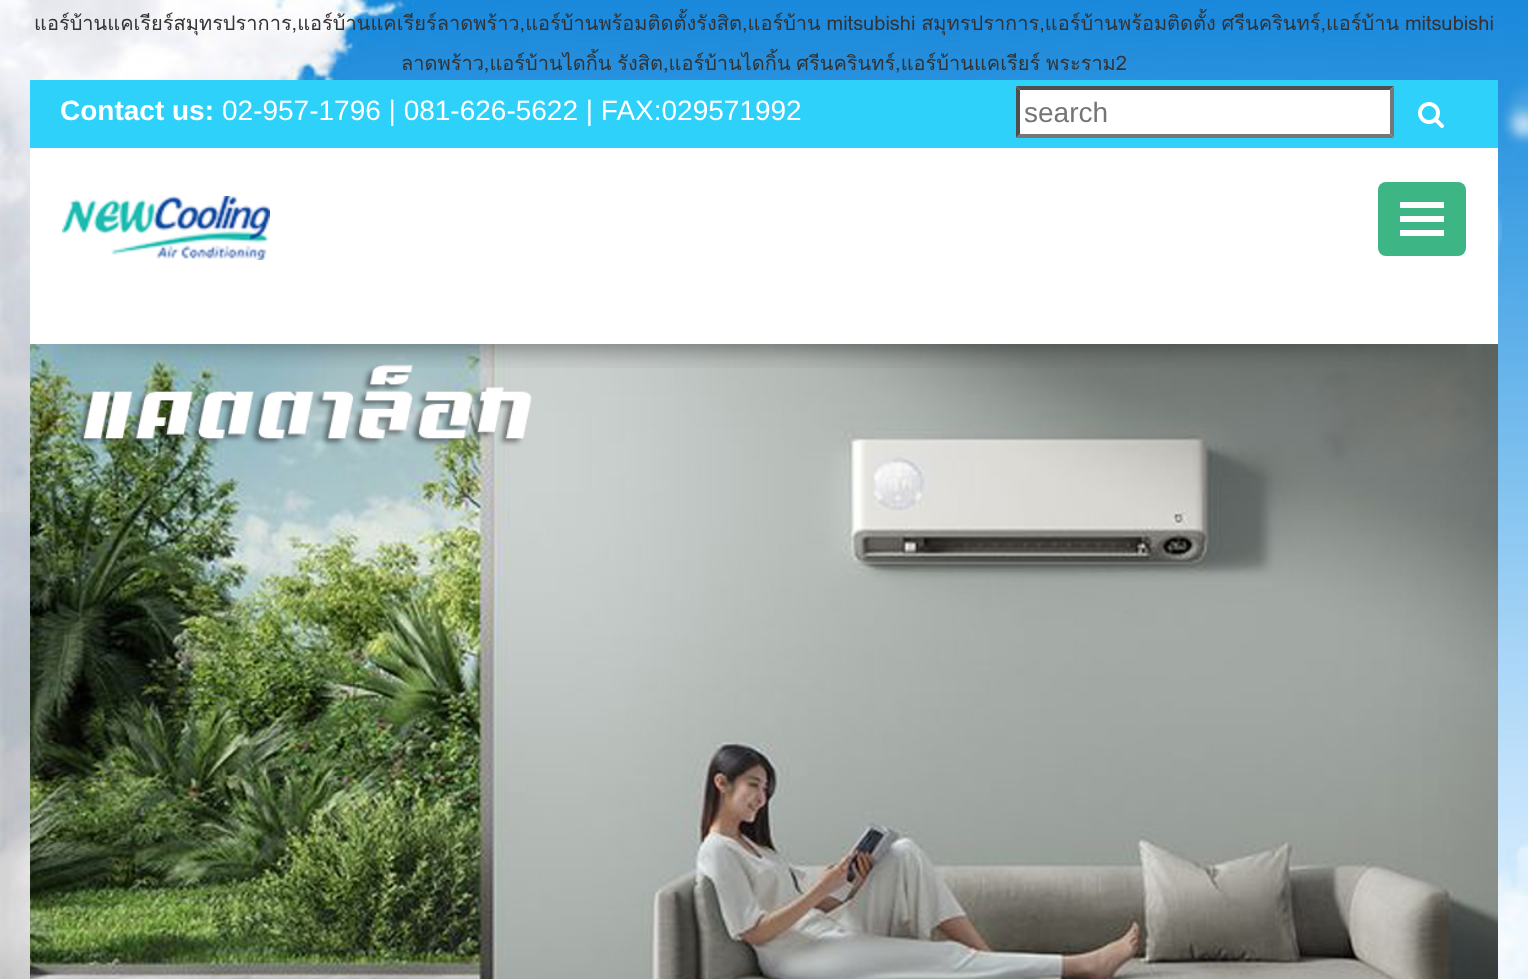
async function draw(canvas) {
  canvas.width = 1528
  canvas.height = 979
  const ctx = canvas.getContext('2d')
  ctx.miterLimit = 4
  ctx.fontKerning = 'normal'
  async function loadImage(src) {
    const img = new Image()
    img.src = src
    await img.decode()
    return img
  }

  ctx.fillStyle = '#fff'
  ctx.fillRect(0, 0, 1528, 979)
  ctx.drawImage(await loadImage('image0.png'), 0, 0, 1528, 979)
  ctx.wordSpacing = '-1px'
  ctx.font = '20px Loma'
  ctx.fillStyle = '#333'
  ctx.fillText('แอร์บ้านแคเรียร์สมุทรปราการ,แอร์บ้านแคเรียร์ลาดพร้าว,แอร์บ้านพร้อมติดตั้งรังสิต,แอร์บ้าน mitsubishi สมุทรปราการ,แอร์บ้านพร้อมติดตั้ง ศรีนครินทร์,แอร์บ้าน mitsubishi', 34, 30)
  ctx.fillText('ลาดพร้าว,แอร์บ้านไดกิ้น รังสิต,แอร์บ้านไดกิ้น ศรีนครินทร์,แอร์บ้านแคเรียร์ พระราม2', 401, 70)
  ctx.fillStyle = '#2dd1fa'
  ctx.fillRect(30, 80, 1468, 68)
  ctx.wordSpacing = '0px'
  ctx.font = 'bold 28px Liberation Sans'
  ctx.fillStyle = '#fff'
  ctx.fillText('Contact us:', 60, 120)
  ctx.font = '28px Liberation Sans'
  ctx.fillText('02-957-1796 | 081-626-5622 | FAX:029571992', 222, 120)
  ctx.fillRect(1016, 86, 378, 52)
  ctx.fillStyle = '#4f4f4f'
  ctx.beginPath()
  ctx.moveTo(1016, 86)
  ctx.lineTo(1394, 86)
  ctx.lineTo(1390, 90)
  ctx.lineTo(1020, 90)
  ctx.closePath()
  ctx.fill()
  ctx.fillStyle = '#767676'
  ctx.beginPath()
  ctx.moveTo(1394, 86)
  ctx.lineTo(1394, 138)
  ctx.lineTo(1390, 134)
  ctx.lineTo(1390, 90)
  ctx.closePath()
  ctx.fill()
  ctx.beginPath()
  ctx.moveTo(1394, 138)
  ctx.lineTo(1016, 138)
  ctx.lineTo(1020, 134)
  ctx.lineTo(1390, 134)
  ctx.closePath()
  ctx.fill()
  ctx.fillStyle = '#4f4f4f'
  ctx.beginPath()
  ctx.moveTo(1016, 138)
  ctx.lineTo(1016, 86)
  ctx.lineTo(1020, 90)
  ctx.lineTo(1020, 134)
  ctx.closePath()
  ctx.fill()
  ctx.fillStyle = '#757575'
  ctx.fillText('search', 1024, 122)
  ctx.drawImage(await loadImage('image1.png'), 1418, 102, 26, 26)
  ctx.fillStyle = '#fff'
  ctx.fillRect(30, 148, 1468, 196)
  ctx.drawImage(await loadImage('image2.png'), 62, 196, 208, 64)
  ctx.fillStyle = '#3eb585'
  ctx.beginPath()
  ctx.roundRect(1378, 182, 88, 74, 8)
  ctx.fill()
  ctx.fillStyle = '#fff'
  ctx.fillRect(1400, 202, 44, 6)
  ctx.fillRect(1400, 216, 44, 6)
  ctx.fillRect(1400, 230, 44, 6)
  ctx.drawImage(await loadImage('image4.png'), 30, 344, 1468, 635)
  ctx.drawImage(await loadImage('image3.png'), 53, 344, 1413, 24)
}

draw(document.querySelector('canvas'))
